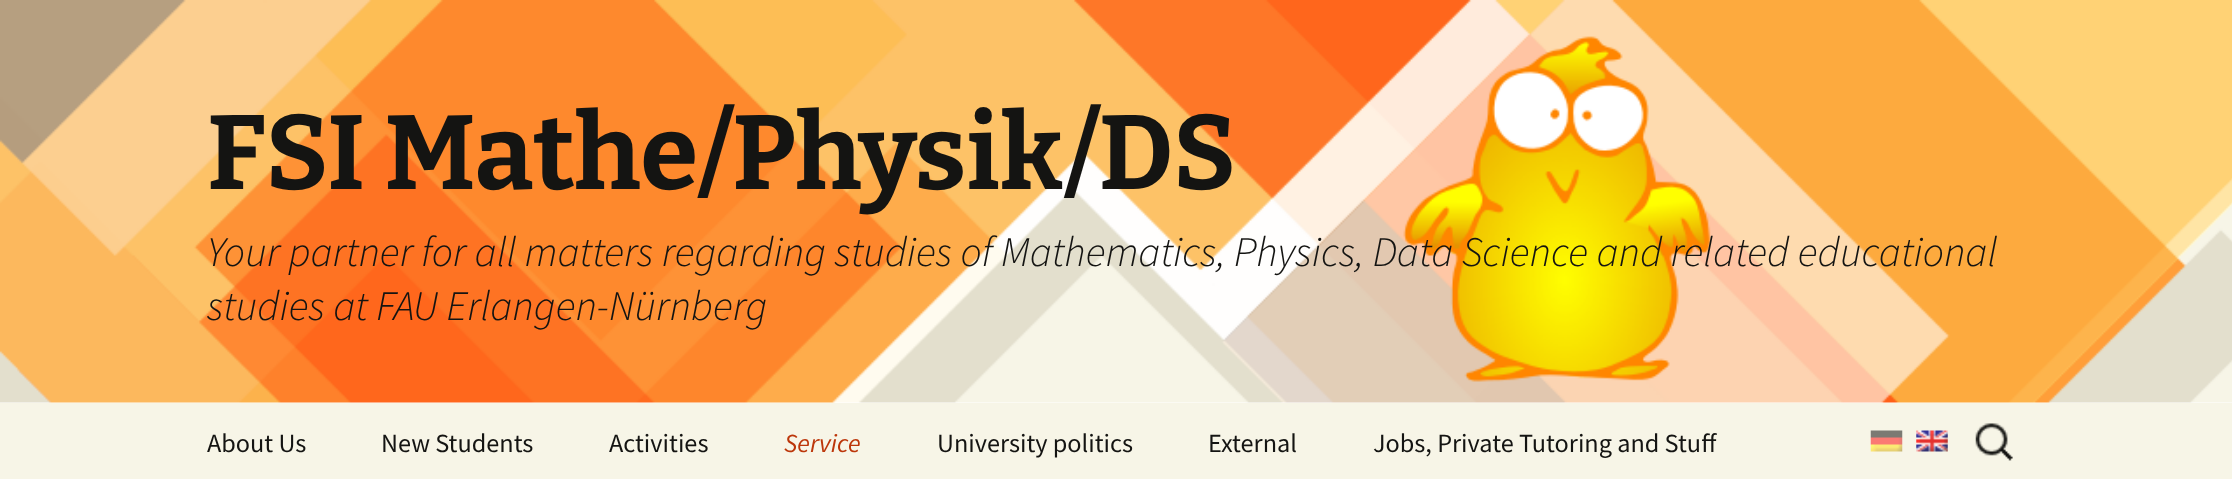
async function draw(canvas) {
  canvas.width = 2232
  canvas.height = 479
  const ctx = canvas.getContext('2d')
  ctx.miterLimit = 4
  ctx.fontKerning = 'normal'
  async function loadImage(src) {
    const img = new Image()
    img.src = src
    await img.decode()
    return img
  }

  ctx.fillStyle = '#fff'
  ctx.fillRect(0, 0, 2232, 479)
  ctx.drawImage(await loadImage('image0.png'), 0, 0, 2232, 403)
  ctx.font = '100 105px Bitter'
  ctx.fillStyle = '#141412'
  ctx.fillText('FSI Mathe/Physik/DS', 207, 189)
  ctx.font = 'italic 300 42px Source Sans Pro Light'
  ctx.fillText('Your partner for all matters regarding studies of Mathematics, Physics, Data Science and related educational', 207, 266)
  ctx.fillText('studies at FAU Erlangen-Nürnberg', 207, 320)
  ctx.fillStyle = '#f7f5e7'
  ctx.fillRect(0, 403, 2232, 76)
  ctx.font = '26.25px Source Sans Pro'
  ctx.fillStyle = '#141412'
  ctx.fillText('About Us', 207, 452)
  ctx.fillText('New Students', 381, 452)
  ctx.fillText('Activities', 609, 452)
  ctx.font = 'italic 26.25px Source Sans Pro'
  ctx.fillStyle = '#bc360a'
  ctx.fillText('Service', 784, 452)
  ctx.font = '26.25px Source Sans Pro'
  ctx.fillStyle = '#141412'
  ctx.fillText('University politics', 937, 452)
  ctx.fillText('External', 1208, 452)
  ctx.fillText('Jobs, Private Tutoring and Stuff', 1373, 452)
  ctx.drawImage(await loadImage('image1.png'), 1870, 430, 33, 22)
  ctx.drawImage(await loadImage('image2.png'), 1916, 430, 32, 22)
  ctx.drawImage(await loadImage('image3.png'), 1975, 423, 38, 38)
}

draw(document.querySelector('canvas'))
